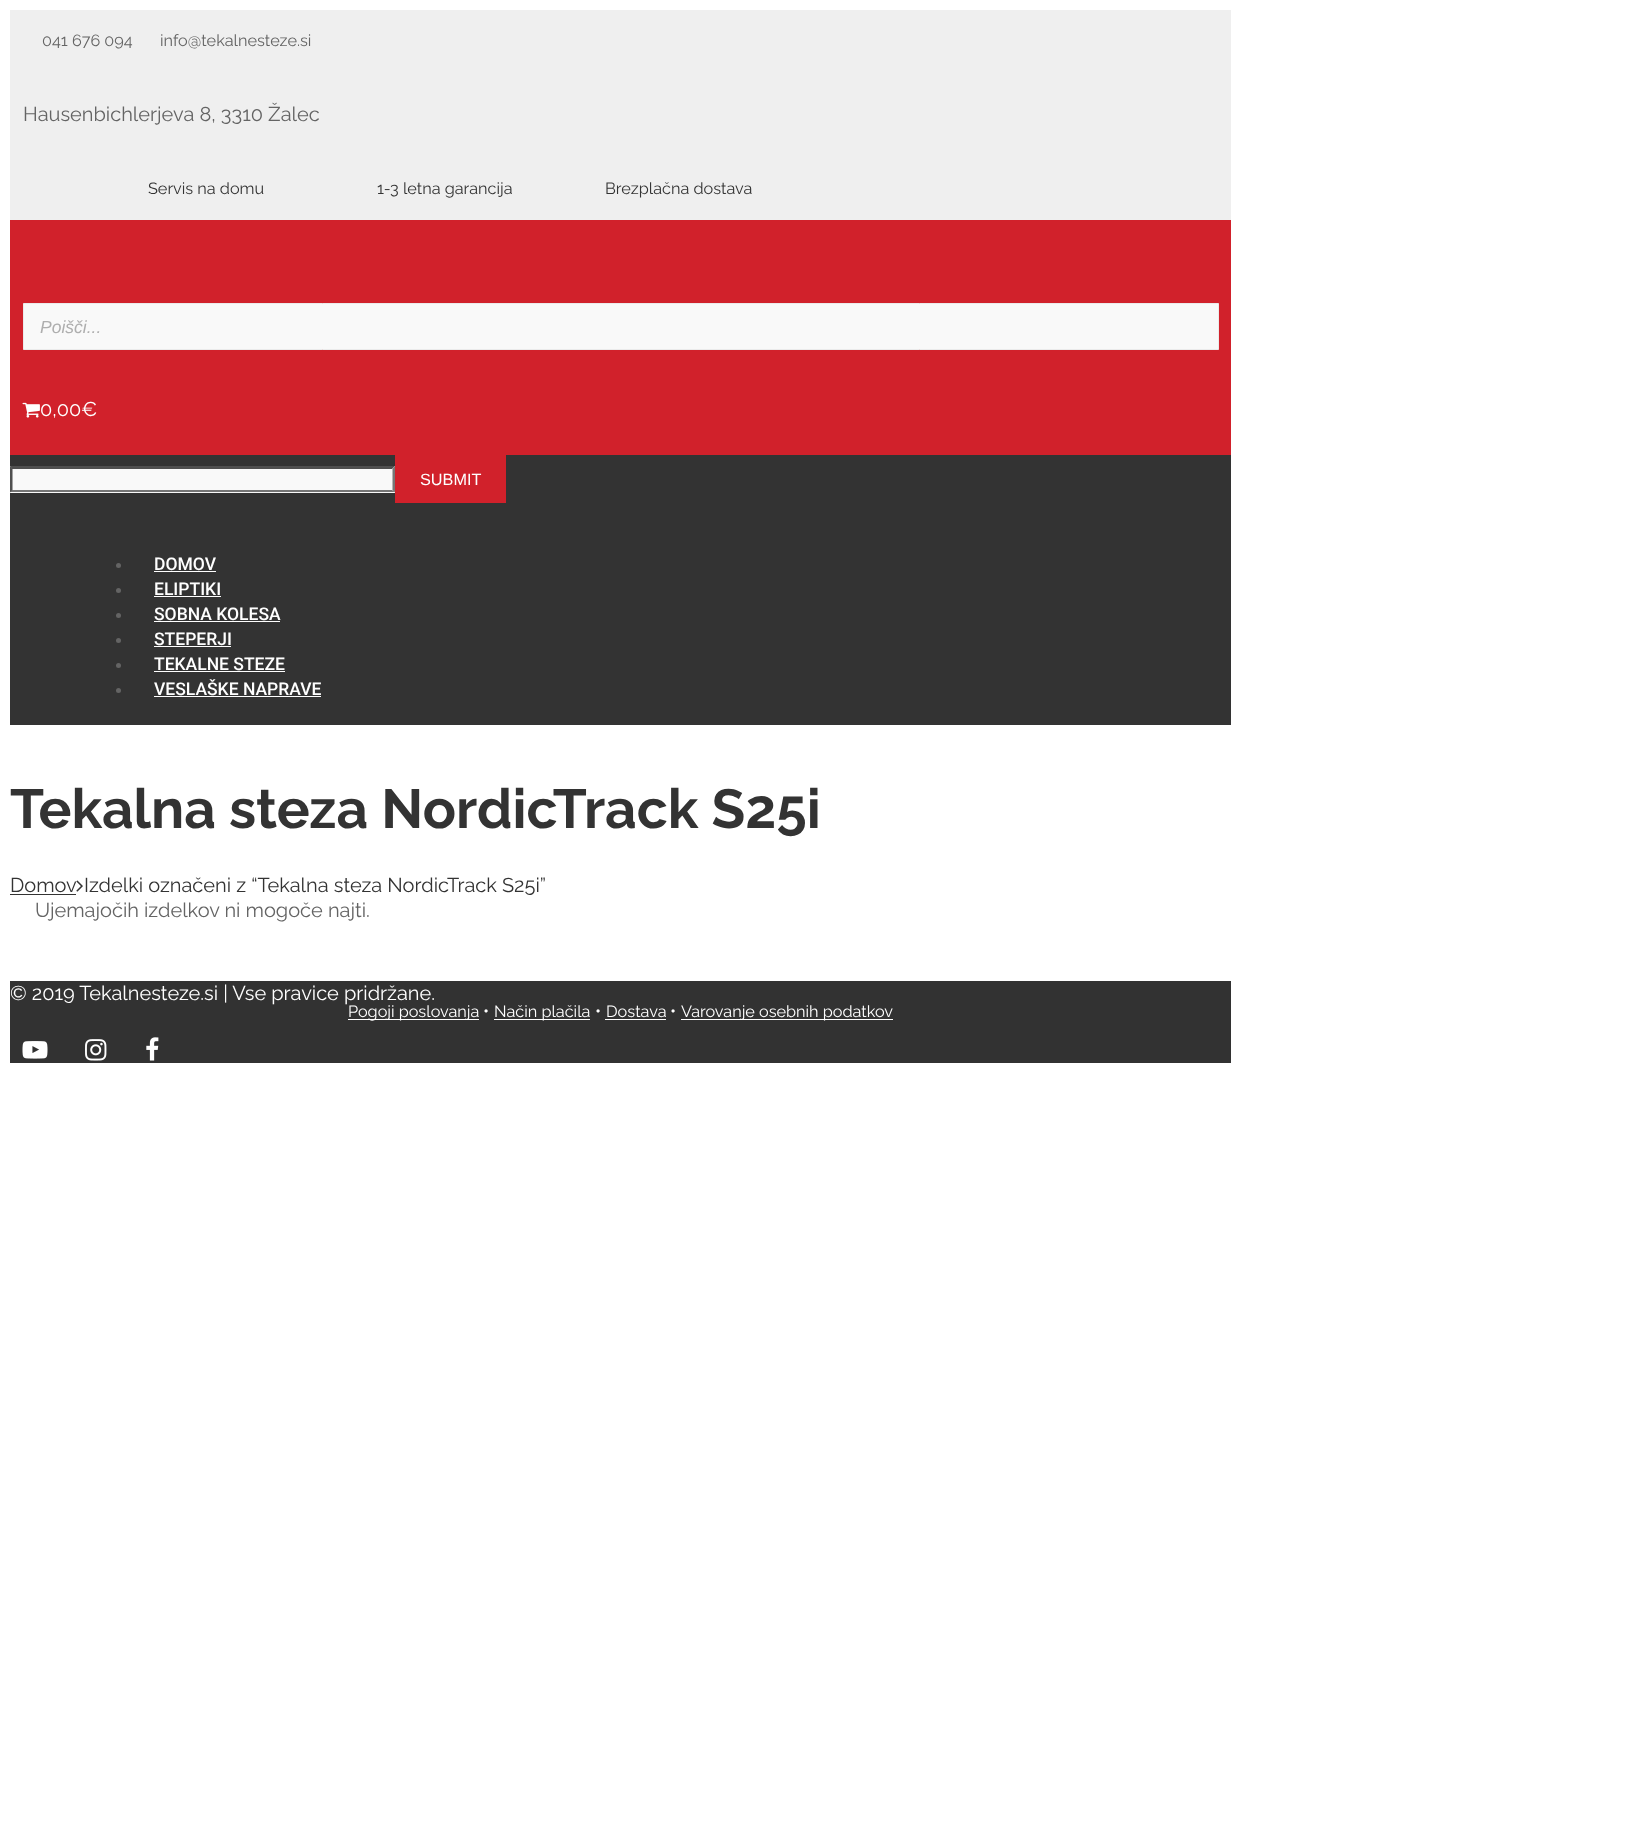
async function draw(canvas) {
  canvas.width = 1647
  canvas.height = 1833
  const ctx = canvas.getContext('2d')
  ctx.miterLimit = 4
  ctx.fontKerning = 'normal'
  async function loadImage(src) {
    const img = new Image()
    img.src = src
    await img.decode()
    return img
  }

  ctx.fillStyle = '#fff'
  ctx.fillRect(0, 0, 1647, 1833)
  ctx.fillStyle = '#efefef'
  ctx.fillRect(10, 10, 1221, 210)
  ctx.font = '16.25px Raleway'
  ctx.fillStyle = '#646464'
  ctx.fillText('041 676 094', 42, 46)
  ctx.fillText('info@tekalnesteze.si', 160, 46)
  ctx.font = '20px Raleway'
  ctx.fillText('Hausenbichlerjeva 8, 3310 Žalec', 23, 121)
  ctx.font = '16.25px Raleway'
  ctx.fillStyle = '#333'
  ctx.fillText('Servis na domu', 148, 194)
  ctx.fillText('1-3 letna garancija', 377, 194)
  ctx.fillText('Brezplačna dostava', 605, 194)
  ctx.fillStyle = '#d1212b'
  ctx.fillRect(10, 220, 1221, 235)
  ctx.fillStyle = '#f9f9f9'
  ctx.beginPath()
  ctx.rect(23.5, 303.5, 1195, 46)
  ctx.fill()
  ctx.strokeStyle = '#ebebeb'
  ctx.stroke()
  ctx.font = 'italic 17.5px Liberation Sans'
  ctx.fillStyle = '#aeaeae'
  ctx.fillText('Poišči...', 40, 333)
  ctx.drawImage(await loadImage('image0.png'), 22, 402, 18, 16)
  ctx.font = '20px Raleway'
  ctx.fillStyle = '#fff'
  ctx.fillText('0,00€', 40, 416)
  ctx.fillStyle = '#333'
  ctx.fillRect(10, 455, 1221, 270)
  ctx.fillStyle = '#f9f9f9'
  ctx.fillRect(10, 466, 385, 27)
  ctx.fillStyle = '#4f4f4f'
  ctx.beginPath()
  ctx.moveTo(10, 466)
  ctx.lineTo(395, 466)
  ctx.lineTo(392, 469)
  ctx.lineTo(12, 469)
  ctx.closePath()
  ctx.fill()
  ctx.fillStyle = '#767676'
  ctx.beginPath()
  ctx.moveTo(395, 466)
  ctx.lineTo(395, 492.5)
  ctx.lineTo(392.5, 490)
  ctx.lineTo(392.5, 469)
  ctx.closePath()
  ctx.fill()
  ctx.beginPath()
  ctx.moveTo(395, 492)
  ctx.lineTo(10, 492)
  ctx.lineTo(12, 490)
  ctx.lineTo(392, 490)
  ctx.closePath()
  ctx.fill()
  ctx.fillStyle = '#4f4f4f'
  ctx.beginPath()
  ctx.moveTo(10, 492.5)
  ctx.lineTo(10, 466)
  ctx.lineTo(12.5, 469)
  ctx.lineTo(12.5, 490)
  ctx.closePath()
  ctx.fill()
  ctx.fillStyle = '#d1212b'
  ctx.fillRect(395, 455, 111, 48)
  ctx.font = '16.25px Liberation Sans'
  ctx.fillStyle = '#fff'
  ctx.fillText('SUBMIT', 420, 485)
  ctx.fillStyle = '#646464'
  ctx.beginPath()
  ctx.arc(118.5, 565.5, 2.5, 0, 2 * Math.PI)
  ctx.fill()
  ctx.font = '500 17.5px Roboto'
  ctx.fillStyle = '#fff'
  ctx.fillText('DOMOV', 154, 570)
  ctx.fillRect(154, 571, 62, 1)
  ctx.fillStyle = '#646464'
  ctx.beginPath()
  ctx.arc(118.5, 590.5, 2.5, 0, 2 * Math.PI)
  ctx.fill()
  ctx.fillStyle = '#fff'
  ctx.fillText('ELIPTIKI', 154, 595)
  ctx.fillRect(154, 596, 67, 1)
  ctx.fillStyle = '#646464'
  ctx.beginPath()
  ctx.arc(118.5, 615.5, 2.5, 0, 2 * Math.PI)
  ctx.fill()
  ctx.fillStyle = '#fff'
  ctx.fillText('SOBNA KOLESA', 154, 620)
  ctx.fillRect(154, 621, 126, 1)
  ctx.fillStyle = '#646464'
  ctx.beginPath()
  ctx.arc(118.5, 640.5, 2.5, 0, 2 * Math.PI)
  ctx.fill()
  ctx.fillStyle = '#fff'
  ctx.fillText('STEPERJI', 154, 645)
  ctx.fillRect(154, 646, 77, 1)
  ctx.fillStyle = '#646464'
  ctx.beginPath()
  ctx.arc(118.5, 665.5, 2.5, 0, 2 * Math.PI)
  ctx.fill()
  ctx.fillStyle = '#fff'
  ctx.fillText('TEKALNE STEZE', 154, 670)
  ctx.fillRect(154, 671, 131, 1)
  ctx.fillStyle = '#646464'
  ctx.beginPath()
  ctx.arc(118.5, 690.5, 2.5, 0, 2 * Math.PI)
  ctx.fill()
  ctx.fillStyle = '#fff'
  ctx.fillText('VESLAŠKE NAPRAVE', 154, 695)
  ctx.fillRect(154, 696, 167, 1)
  ctx.font = 'bold 55px Raleway'
  ctx.fillStyle = '#333'
  ctx.fillText('Tekalna steza NordicTrack S25i', 10, 828)
  ctx.font = '20px Raleway'
  ctx.fillText('Domov', 10, 892)
  ctx.fillRect(10, 894, 66, 1)
  ctx.drawImage(await loadImage('image1.png'), 76, 880, 7, 12)
  ctx.fillText('Izdelki označeni z “Tekalna steza NordicTrack S25i”', 84, 892)
  ctx.fillStyle = '#646464'
  ctx.fillText('Ujemajočih izdelkov ni mogoče najti.', 35, 917)
  ctx.fillStyle = '#323232'
  ctx.fillRect(10, 981, 1221, 82)
  ctx.fillStyle = '#fff'
  ctx.fillText('© 2019 Tekalnesteze.si | Vse pravice pridržane.', 10, 1000)
  ctx.drawImage(await loadImage('image2.png'), 22, 1041, 26, 18)
  ctx.drawImage(await loadImage('image3.png'), 85, 1039, 22, 22)
  ctx.drawImage(await loadImage('image4.png'), 146, 1037, 13, 24)
  ctx.fillRect(348, 1019, 131, 1)
  ctx.font = '16.25px Raleway'
  ctx.fillText('Pogoji poslovanja', 348, 1017)
  ctx.font = '17.5px Raleway'
  ctx.fillText('•', 483, 1017)
  ctx.fillRect(494, 1019, 96, 1)
  ctx.font = '16.25px Raleway'
  ctx.fillText('Način plačila', 494, 1017)
  ctx.font = '17.5px Raleway'
  ctx.fillText('•', 595, 1017)
  ctx.font = '16.25px Raleway'
  ctx.fillText('Dostava', 606, 1017)
  ctx.fillRect(605, 1019, 61, 1)
  ctx.font = '17.5px Raleway'
  ctx.fillText('•', 670, 1017)
  ctx.fillRect(681, 1019, 212, 1)
  ctx.font = '16.25px Raleway'
  ctx.fillText('Varovanje osebnih podatkov', 681, 1017)
}

draw(document.querySelector('canvas'))
